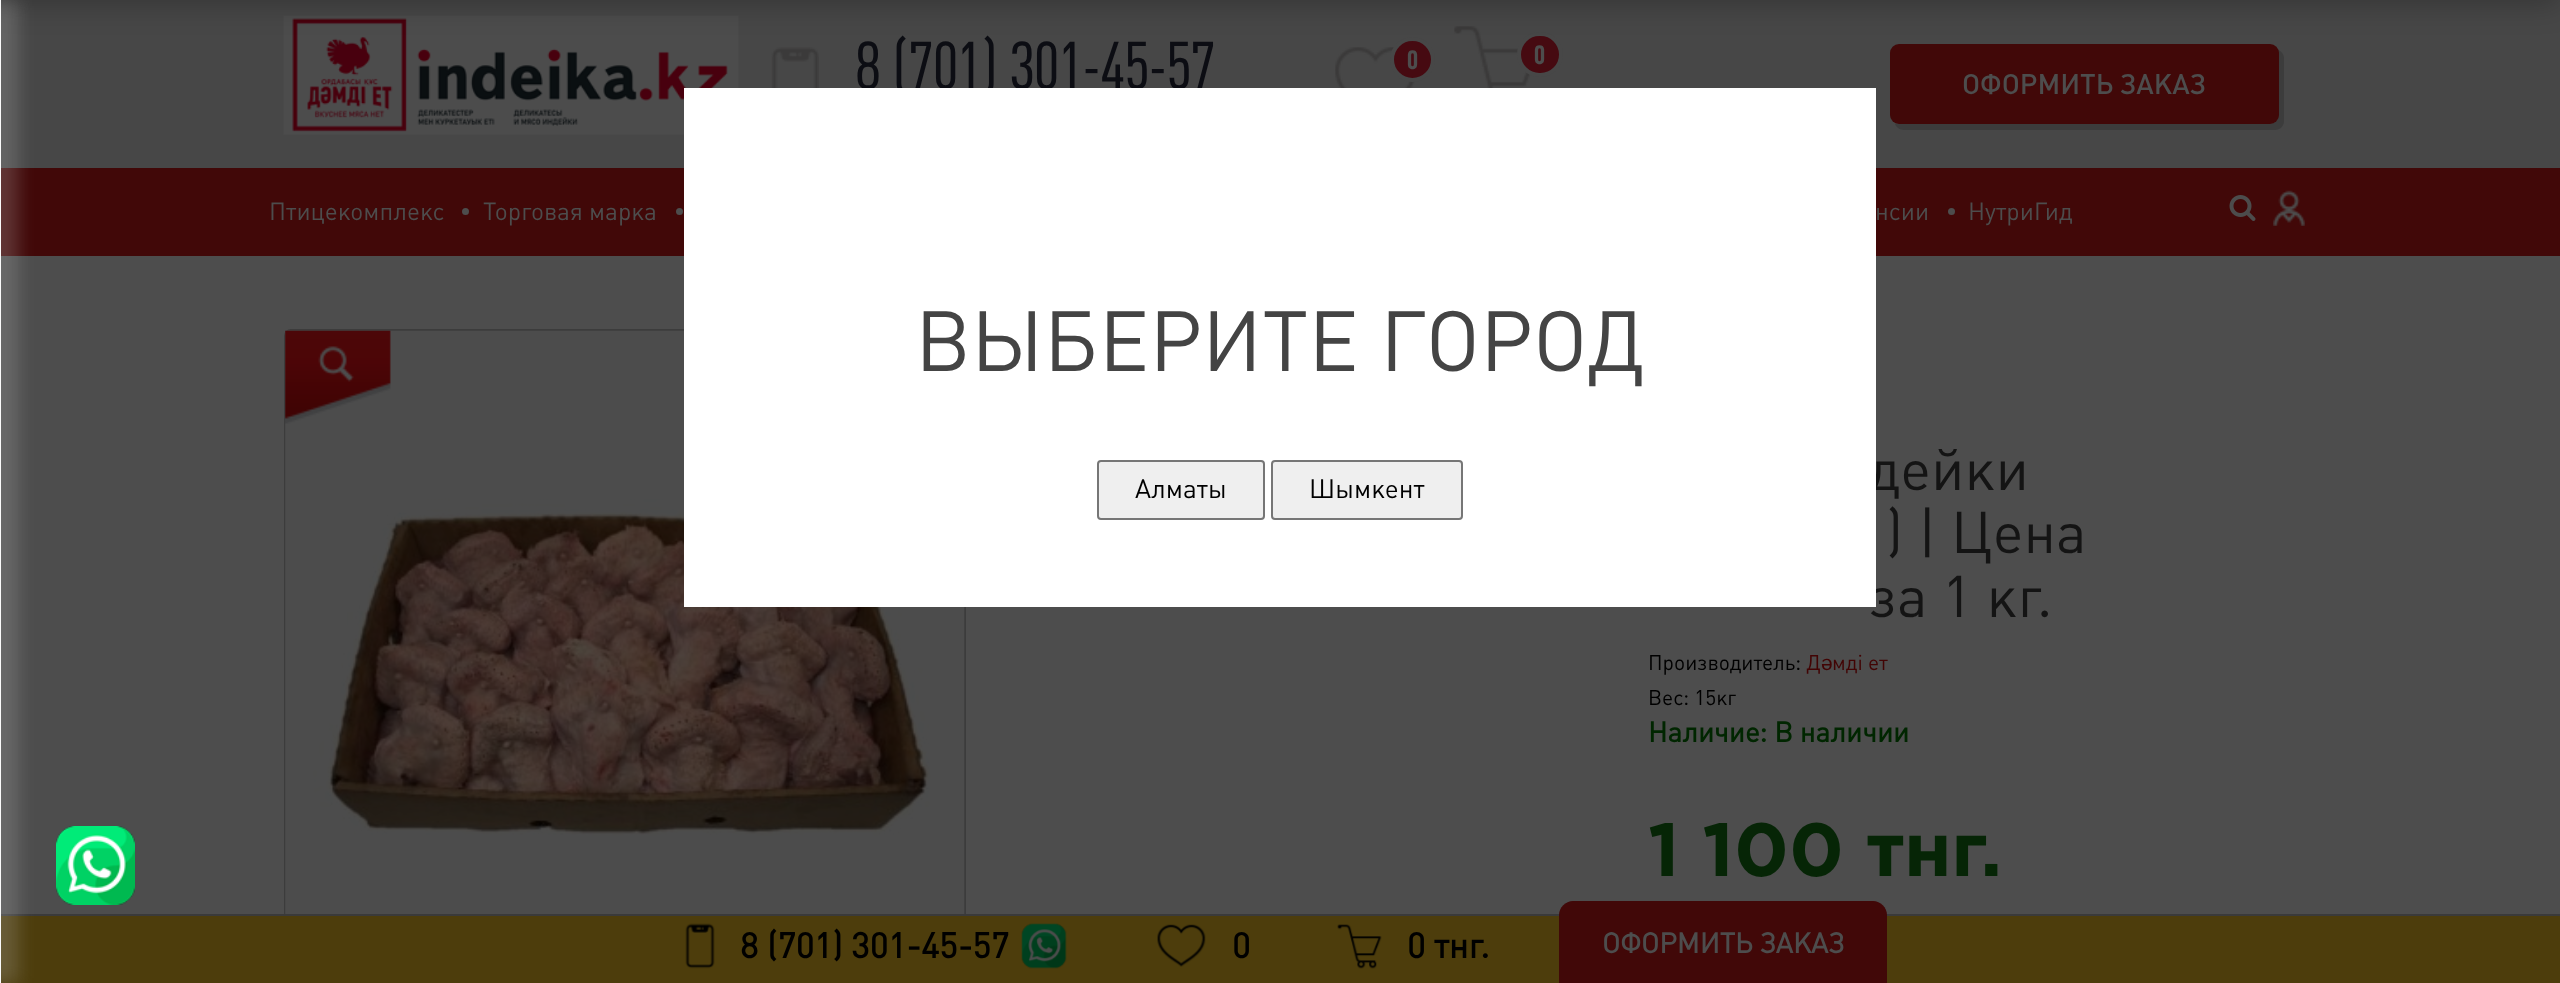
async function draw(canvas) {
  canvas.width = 2560
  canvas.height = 983
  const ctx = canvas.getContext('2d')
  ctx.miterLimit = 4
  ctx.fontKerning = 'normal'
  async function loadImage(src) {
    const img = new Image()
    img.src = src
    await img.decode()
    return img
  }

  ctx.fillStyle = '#4d4d4d'
  ctx.fillRect(0, 0, 2560, 983)
  ctx.fillStyle = '#474747'
  ctx.fillRect(1, 0, 2559, 168)
  ctx.drawImage(await loadImage('image0.png'), 283, 15, 456, 120)
  ctx.drawImage(await loadImage('image1.png'), 771, 47, 48, 41)
  ctx.drawImage(await loadImage('image2.png'), 1335, 47, 80, 41)
  ctx.fillStyle = '#460a11'
  ctx.beginPath()
  ctx.arc(1412.5, 59.5, 20.5, 0, 2 * Math.PI)
  ctx.fill()
  ctx.strokeStyle = '#474747'
  ctx.lineWidth = 4
  ctx.stroke()
  ctx.drawImage(await loadImage('image3.png'), 1454, 26, 77, 62)
  ctx.beginPath()
  ctx.roundRect(1519, 34, 42, 41, 20.5)
  ctx.fill()
  ctx.stroke()
  ctx.fillStyle = '#3c3c3c'
  ctx.beginPath()
  ctx.moveTo(1895, 124)
  ctx.bezierCurveTo(1896, 127, 1900, 130, 1904, 130)
  ctx.lineTo(2275, 130)
  ctx.bezierCurveTo(2280, 130, 2284, 126, 2284, 121)
  ctx.lineTo(2284, 58)
  ctx.bezierCurveTo(2284, 54, 2281, 51, 2278, 50)
  ctx.lineTo(2278, 52)
  ctx.lineTo(2278, 116)
  ctx.bezierCurveTo(2278, 120, 2275, 124, 2270, 124)
  ctx.lineTo(1899, 124)
  ctx.closePath()
  ctx.fill()
  ctx.fillStyle = '#410808'
  ctx.beginPath()
  ctx.roundRect(1890, 44, 389, 80, 9)
  ctx.fill()
  ctx.fillStyle = '#0000003d'
  ctx.filter = 'blur(14px)'
  ctx.beginPath()
  ctx.rect(0, -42, 2560, 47)
  ctx.fill()
  ctx.filter = 'none'
  ctx.fillStyle = '#410808'
  ctx.fillRect(1, 168, 2559, 88)
  ctx.beginPath()
  ctx.roundRect(285, 330, 680, 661, 6)
  ctx.strokeStyle = '#3c3c3c'
  ctx.lineWidth = 2
  ctx.stroke()
  ctx.fillStyle = '#4d3d0c'
  ctx.fillRect(1, 916, 2559, 67)
  ctx.fillStyle = '#3a3a3a'
  ctx.fillRect(0, 914, 2560, 2)
  ctx.fillStyle = '#bababa40'
  ctx.filter = 'blur(9px)'
  ctx.beginPath()
  ctx.rect(-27, 0, 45, 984)
  ctx.fill()
  ctx.filter = 'none'
  ctx.fillStyle = '#fafafa'
  ctx.fillRect(0, 0, 1, 983)
  ctx.font = '66.5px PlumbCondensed'
  ctx.fillStyle = '#0c0d13'
  ctx.fillText('8 (701) 301-45-57', 856, 89)
  ctx.font = 'bold 26.25px PlumbCondensed'
  ctx.fillStyle = '#4d4d4d'
  ctx.fillText('0', 1407, 69)
  ctx.fillText('0', 1534, 64)
  ctx.font = '500 28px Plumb'
  ctx.fillText('ОФОРМИТЬ ЗАКАЗ', 1962, 94)
  ctx.drawImage(await loadImage('image7.png'), 285, 330, 680, 584)
  ctx.font = '58px Plumb'
  ctx.fillStyle = '#141414'
  ctx.fillText('дейки', 1868, 490)
  ctx.fillText('за 1 кг.', 1869, 617)
  ctx.fillStyle = '#fff'
  ctx.fillRect(684, 88, 1192, 519)
  ctx.font = '84px Plumb'
  ctx.fillStyle = '#444'
  ctx.fillText('ВЫБЕРИТЕ ГОРОД', 915, 371)
  ctx.fillStyle = '#efefef'
  ctx.beginPath()
  ctx.roundRect(1098, 461, 166, 58, 3)
  ctx.fill()
  ctx.strokeStyle = '#767676'
  ctx.stroke()
  ctx.font = '26.25px Plumb'
  ctx.fillStyle = '#000'
  ctx.fillText('Алматы', 1135, 498)
  ctx.fillStyle = '#efefef'
  ctx.beginPath()
  ctx.roundRect(1272, 461, 190, 58, 3)
  ctx.fill()
  ctx.stroke()
  ctx.fillStyle = '#000'
  ctx.fillText('Шымкент', 1309, 498)
  ctx.font = '24.5px Plumb'
  ctx.fillStyle = '#4d4d4d'
  ctx.fillText('Птицекомплекс', 269, 220)
  ctx.beginPath()
  ctx.arc(465.5, 211.5, 3.5, 0, 2 * Math.PI)
  ctx.fill()
  ctx.fillText('Торговая марка', 483, 220)
  ctx.beginPath()
  ctx.arc(679.5, 211.5, 3.5, 0, 2 * Math.PI)
  ctx.fill()
  ctx.fillText('нсии', 1875, 220)
  ctx.beginPath()
  ctx.arc(1951.5, 211.5, 3.5, 0, 2 * Math.PI)
  ctx.fill()
  ctx.fillText('НутриГид', 1968, 220)
  ctx.drawImage(await loadImage('image4.png'), 2229, 195, 27, 26)
  ctx.drawImage(await loadImage('image5.png'), 2273, 190, 32, 36)
  ctx.drawImage(await loadImage('image6.png'), 56, 826, 79, 79)
  ctx.drawImage(await loadImage('image8.png'), 285, 330, 106, 94)
  ctx.font = '58px Plumb'
  ctx.fillStyle = '#141414'
  ctx.fillText(') | Цена', 1886, 553)
  ctx.font = '21px Plumb'
  ctx.fillStyle = '#000'
  ctx.fillText('Производитель:', 1648, 670)
  ctx.fillStyle = '#420404'
  ctx.fillText('Д', 1806, 670)
  ctx.font = '21px Liberation Sans'
  ctx.fillText('ә', 1821, 670)
  ctx.font = '21px Plumb'
  ctx.fillText('мді ет', 1832, 670)
  ctx.fillStyle = '#000'
  ctx.fillText('Вес: 15кг', 1648, 705)
  ctx.font = 'bold 28px Plumb'
  ctx.fillStyle = '#002600'
  ctx.fillText('Наличие: В наличии', 1648, 742)
  ctx.font = 'bold 75.25px Gotham'
  ctx.fillStyle = '#062506'
  ctx.fillText('1 100 тнг.', 1648, 876)
  ctx.drawImage(await loadImage('image9.png'), 685, 923, 30, 46)
  ctx.font = 'bold 35px Plumb'
  ctx.fillStyle = '#000'
  ctx.fillText('8 (701) 301-45-57', 740, 958)
  ctx.drawImage(await loadImage('image10.png'), 1021, 923, 46, 46)
  ctx.drawImage(await loadImage('image11.png'), 1157, 924, 49, 43)
  ctx.fillText('0', 1232, 958)
  ctx.drawImage(await loadImage('image12.png'), 1337, 924, 45, 45)
  ctx.fillText('0 тнг.', 1407, 958)
  ctx.fillStyle = '#410808'
  ctx.beginPath()
  ctx.moveTo(1573, 901)
  ctx.lineTo(1873, 901)
  ctx.bezierCurveTo(1880.5, 901, 1887, 907.5, 1887, 915)
  ctx.lineTo(1887, 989)
  ctx.lineTo(1559, 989)
  ctx.lineTo(1559, 915)
  ctx.bezierCurveTo(1559, 907.5, 1565.5, 901, 1573, 901)
  ctx.closePath()
  ctx.fill()
  ctx.font = 'bold 28px Plumb'
  ctx.fillStyle = '#4d4d4d'
  ctx.fillText('ОФОРМИТЬ ЗАКАЗ', 1602, 953)
}

draw(document.querySelector('canvas'))
